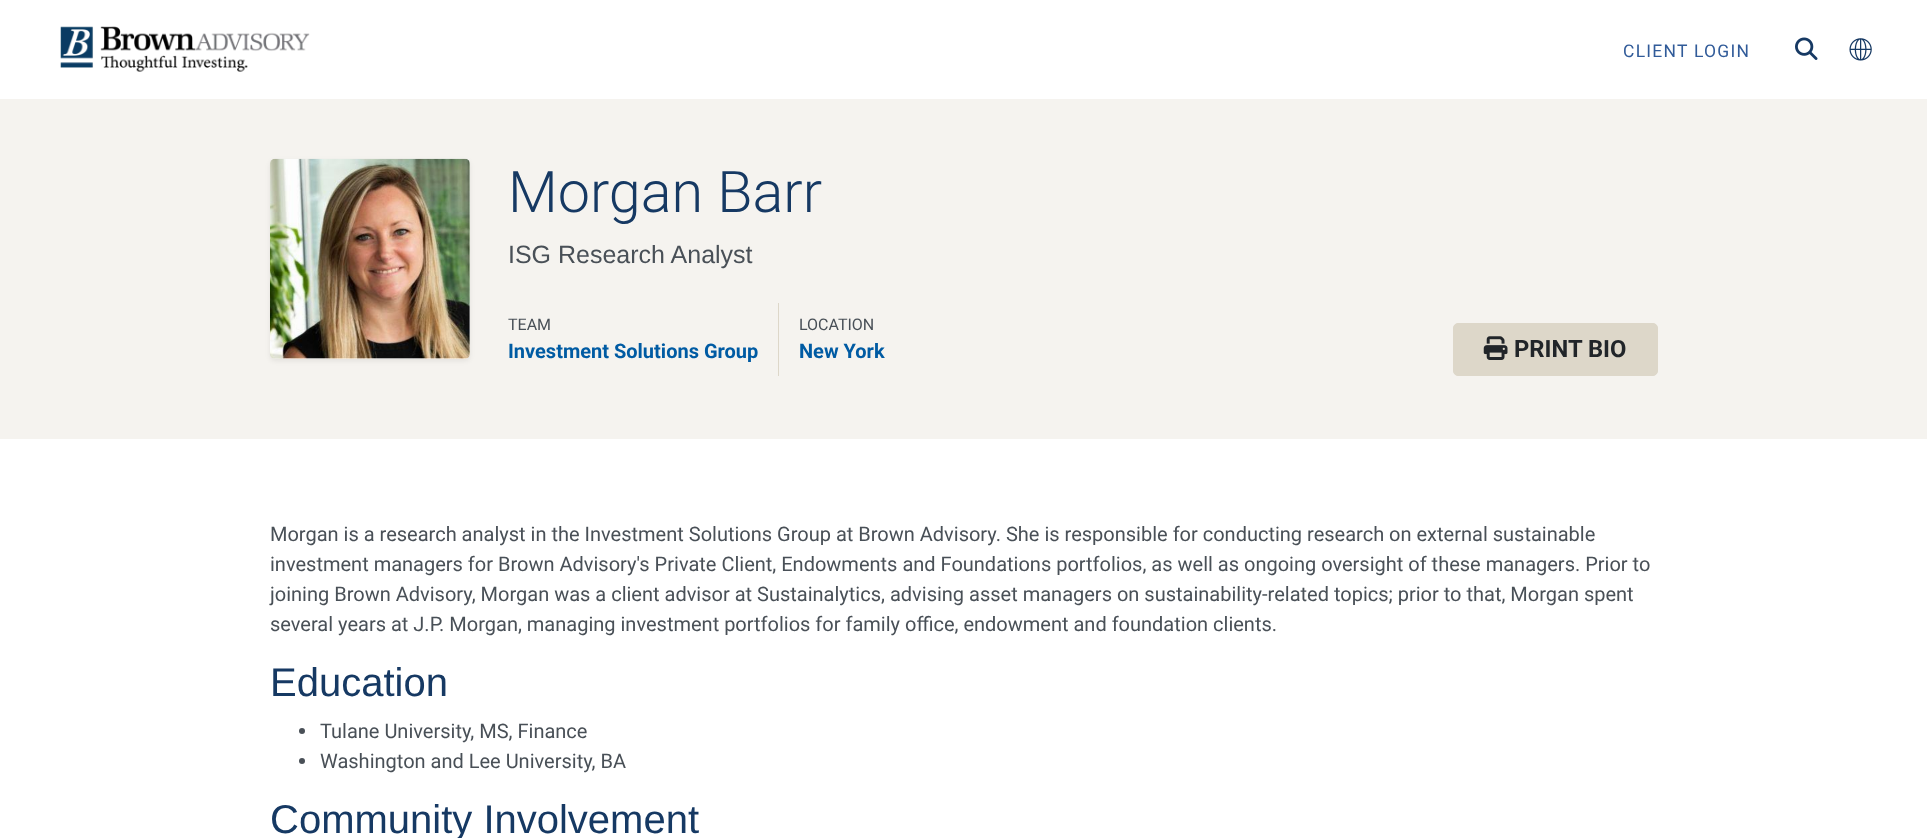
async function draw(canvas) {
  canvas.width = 1927
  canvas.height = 838
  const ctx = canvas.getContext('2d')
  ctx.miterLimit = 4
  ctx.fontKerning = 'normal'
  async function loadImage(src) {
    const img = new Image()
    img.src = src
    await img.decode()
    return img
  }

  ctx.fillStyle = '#fff'
  ctx.fillRect(0, 0, 1927, 838)
  ctx.drawImage(await loadImage('image0.png'), 60, 26, 250, 46)
  ctx.letterSpacing = '1.25px'
  ctx.font = '17.5px Roboto'
  ctx.fillStyle = '#315b99'
  ctx.fillText('CLIENT LOGIN', 1623, 57)
  ctx.drawImage(await loadImage('image1.png'), 1795, 37, 23, 23)
  ctx.drawImage(await loadImage('image2.png'), 1849, 38, 23, 23)
  ctx.fillStyle = '#f5f3ef'
  ctx.fillRect(0, 99, 1927, 340)
  ctx.fillStyle = '#00000012'
  ctx.filter = 'blur(2.5px)'
  ctx.beginPath()
  ctx.roundRect(270, 161, 200, 200, 5)
  ctx.fill()
  ctx.filter = 'none'
  ctx.drawImage(await loadImage('image3.png'), 270, 158, 200, 201)
  ctx.letterSpacing = '0px'
  ctx.font = '300 57.5px Roboto'
  ctx.fillStyle = '#163963'
  ctx.fillText('Morgan Barr', 508, 212)
  ctx.font = '25px Liberation Sans'
  ctx.fillStyle = '#495057'
  ctx.fillText('ISG Research Analyst', 508, 263)
  ctx.font = '16px Roboto'
  ctx.fillText('TEAM', 508, 330)
  ctx.font = 'bold 20px Roboto'
  ctx.fillStyle = '#005ba3'
  ctx.fillText('Investment Solutions Group', 508, 358)
  ctx.fillStyle = '#ddd7c9'
  ctx.fillRect(778, 303, 1, 73)
  ctx.font = '16px Roboto'
  ctx.fillStyle = '#495057'
  ctx.fillText('LOCATION', 799, 330)
  ctx.font = 'bold 20px Roboto'
  ctx.fillStyle = '#005ba3'
  ctx.fillText('New York', 799, 358)
  ctx.fillStyle = '#ddd7c9'
  ctx.beginPath()
  ctx.roundRect(1453.5, 323.5, 204, 52, 4.5)
  ctx.fill()
  ctx.strokeStyle = '#ddd7c9'
  ctx.stroke()
  ctx.drawImage(await loadImage('image4.png'), 1483, 336, 25, 24)
  ctx.font = 'bold 23.75px Roboto'
  ctx.fillStyle = '#212529'
  ctx.fillText('PRINT BIO', 1514, 357)
  ctx.font = '20px Roboto'
  ctx.fillStyle = '#495057'
  ctx.fillText('Morgan is a research analyst in the Investment Solutions Group at Brown Advisory. She is responsible for conducting research on external sustainable', 270, 541)
  ctx.fillText('investment managers for Brown Advisory\'s Private Client, Endowments and Foundations portfolios, as well as ongoing oversight of these managers. Prior to', 270, 571)
  ctx.fillText('joining Brown Advisory, Morgan was a client advisor at Sustainalytics, advising asset managers on sustainability-related topics; prior to that, Morgan spent', 270, 601)
  ctx.fillText('several years at J.P. Morgan, managing investment portfolios for family office, endowment and foundation clients.', 270, 631)
  ctx.font = '40px Liberation Sans'
  ctx.fillStyle = '#163963'
  ctx.fillText('Education', 270, 696)
  ctx.fillStyle = '#495057'
  ctx.beginPath()
  ctx.arc(302, 731, 3, 0, 2 * Math.PI)
  ctx.fill()
  ctx.font = '20px Roboto'
  ctx.fillText('Tulane University, MS, Finance', 320, 738)
  ctx.beginPath()
  ctx.arc(302, 761, 3, 0, 2 * Math.PI)
  ctx.fill()
  ctx.fillText('Washington and Lee University, BA', 320, 768)
  ctx.font = '40px Liberation Sans'
  ctx.fillStyle = '#163963'
  ctx.fillText('Community Involvement', 270, 833)
}

draw(document.querySelector('canvas'))
